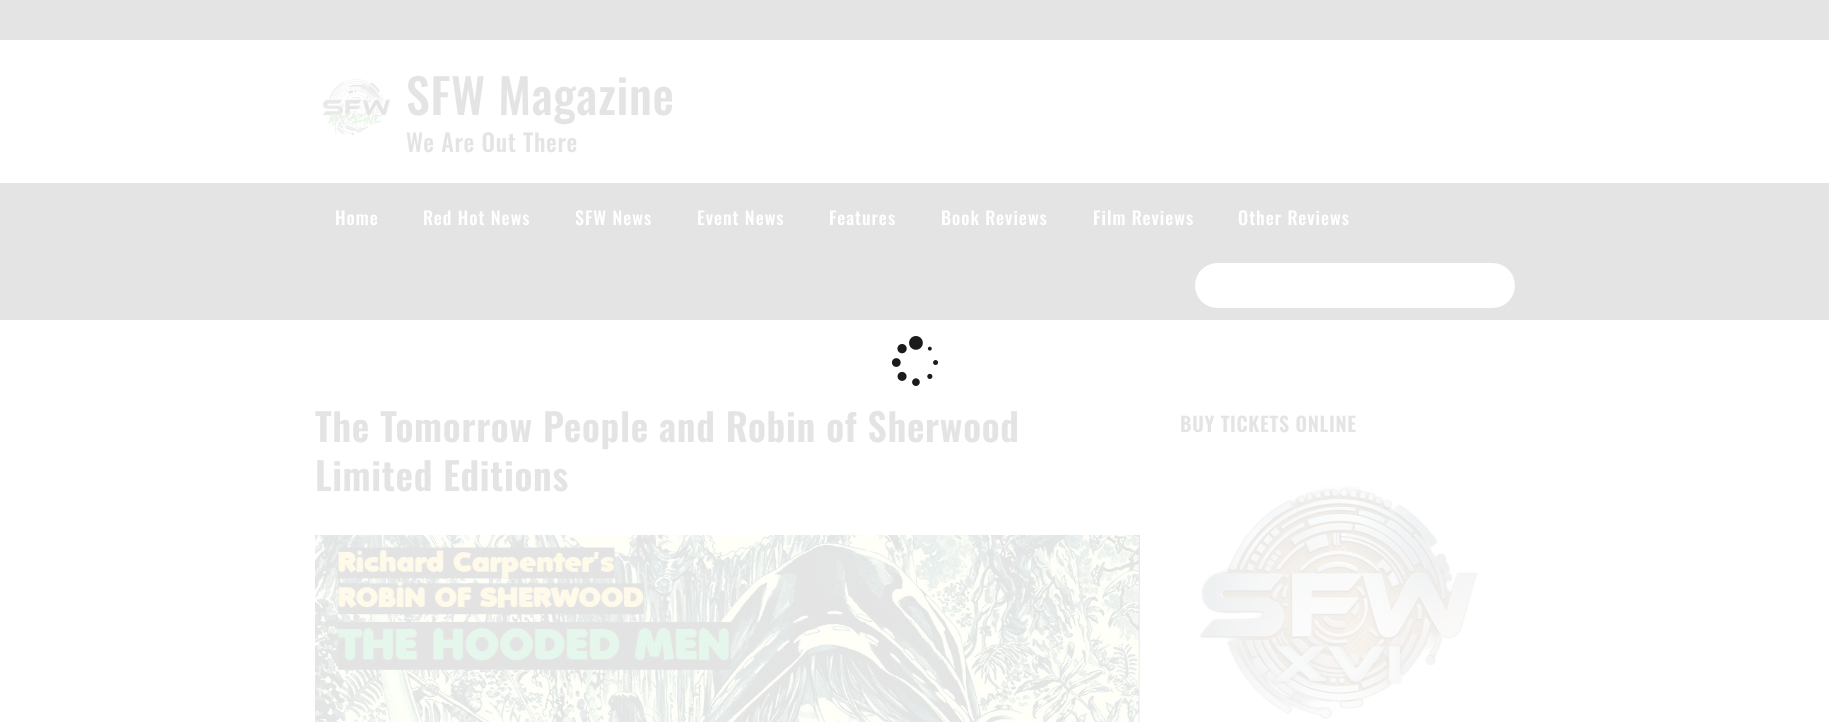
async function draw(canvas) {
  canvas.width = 1829
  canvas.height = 722
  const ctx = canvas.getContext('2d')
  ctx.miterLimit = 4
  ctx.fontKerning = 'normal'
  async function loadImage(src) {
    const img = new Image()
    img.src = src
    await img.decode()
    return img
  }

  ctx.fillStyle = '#fff'
  ctx.fillRect(0, 0, 1829, 722)
  ctx.fillStyle = '#e4e4e4'
  ctx.fillRect(0, 0, 1829, 40)
  ctx.drawImage(await loadImage('image0.png'), 322, 78, 69, 58)
  ctx.letterSpacing = '0.7px'
  ctx.font = '500 48px Oswald'
  ctx.fillText('SFW Magazine', 406, 115)
  ctx.font = '500 24px Oswald'
  ctx.fillText('We Are Out There', 406, 152)
  ctx.fillRect(0, 183, 1829, 137)
  ctx.letterSpacing = '1px'
  ctx.font = '500 18px Oswald'
  ctx.fillStyle = '#fff'
  ctx.fillText('Home', 335, 225)
  ctx.fillText('Red Hot News', 423, 225)
  ctx.fillText('SFW News', 575, 225)
  ctx.fillText('Event News', 697, 225)
  ctx.fillText('Features', 829, 225)
  ctx.fillText('Book Reviews', 941, 225)
  ctx.fillText('Film Reviews', 1093, 225)
  ctx.fillText('Other Reviews', 1238, 225)
  ctx.beginPath()
  ctx.roundRect(1195, 263, 320, 45, 22.5)
  ctx.fill()
  ctx.drawImage(await loadImage('image1.png'), 891, 336, 48, 50)
  ctx.letterSpacing = '0.7px'
  ctx.font = '600 38px Oswald'
  ctx.fillStyle = '#e4e4e4'
  ctx.fillText('The Tomorrow People and Robin of Sherwood', 315, 442)
  ctx.fillText('Limited Editions', 315, 491)
  ctx.drawImage(await loadImage('image2.png'), 315, 535, 825, 187)
  ctx.font = '600 20px Oswald'
  ctx.fillText('BUY TICKETS ONLINE', 1180, 432)
  ctx.drawImage(await loadImage('image3.png'), 1198, 486, 280, 234)
}

draw(document.querySelector('canvas'))
